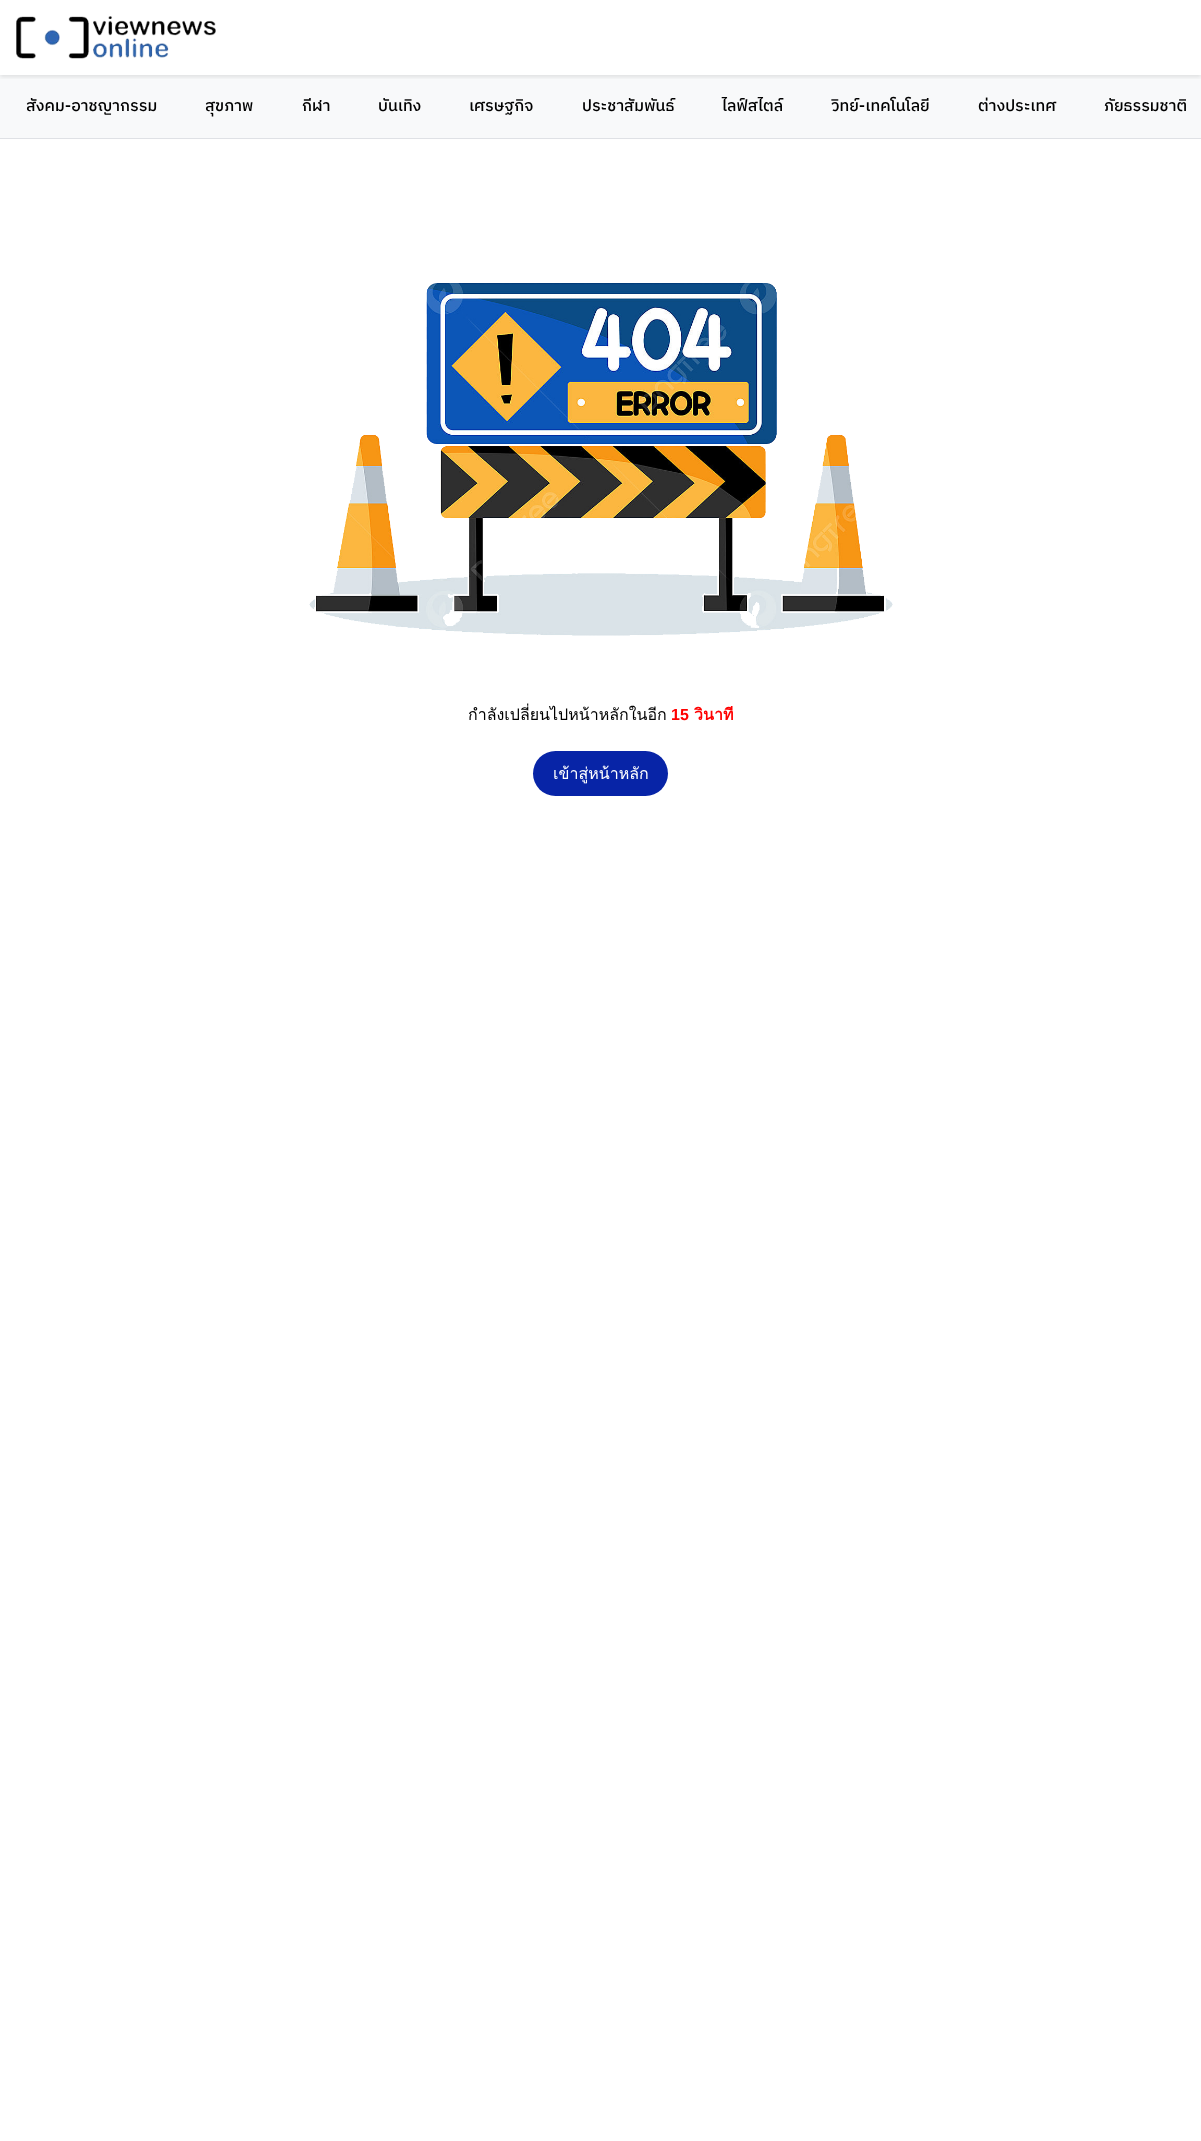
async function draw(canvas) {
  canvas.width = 1201
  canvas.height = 2141
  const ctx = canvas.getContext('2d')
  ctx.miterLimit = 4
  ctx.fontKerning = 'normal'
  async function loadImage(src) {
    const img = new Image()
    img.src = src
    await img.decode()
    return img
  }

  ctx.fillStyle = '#fff'
  ctx.fillRect(0, 0, 1201, 2141)
  ctx.fillStyle = '#f8f9fa'
  ctx.fillRect(0, 75, 1201, 63)
  ctx.save()
  ctx.beginPath()
  ctx.rect(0, 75, 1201, 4)
  ctx.clip()
  ctx.fillStyle = '#0000001a'
  ctx.filter = 'blur(2px)'
  ctx.beginPath()
  ctx.rect(0, 2, 1201, 75)
  ctx.fill()
  ctx.filter = 'none'
  ctx.restore()
  ctx.drawImage(await loadImage('image0.png'), 16, 16, 200, 43)
  ctx.fillStyle = '#dfe1e5'
  ctx.fillRect(0, 138, 1201, 1)
  ctx.font = '500 16px IBM Plex Sans Thai'
  ctx.fillStyle = '#000'
  ctx.fillText('สังคม-อาชญากรรม', 26, 111)
  ctx.fillText('สุขภาพ', 205, 111)
  ctx.fillText('กีฬา', 302, 111)
  ctx.fillText('บันเทิง', 378, 111)
  ctx.fillText('เศรษฐกิจ', 469, 111)
  ctx.fillText('ประชาสัมพันธ์', 582, 111)
  ctx.fillText('ไลฟ์สไตล์', 722, 111)
  ctx.fillText('วิทย์-เทคโนโลยี', 831, 111)
  ctx.fillText('ต่างประเทศ', 978, 111)
  ctx.fillText('ภัยธรรมชาติ', 1104, 111)
  ctx.drawImage(await loadImage('image1.png'), 309, 283, 584, 353)
  ctx.font = '16px Loma'
  ctx.fillText('กำลังเปลี่ยนไปหน้าหลักในอีก', 468, 720)
  ctx.font = 'bold 16px Liberation Sans'
  ctx.fillStyle = '#f00'
  ctx.fillText('15', 671, 720)
  ctx.font = 'bold 16px Loma'
  ctx.fillText('วินาที', 694, 720)
  ctx.fillStyle = '#0724a7'
  ctx.beginPath()
  ctx.roundRect(533, 751, 135, 45, 22.5)
  ctx.fill()
  ctx.font = '16px Loma'
  ctx.fillStyle = '#fff'
  ctx.fillText('เข้าสู่หน้าหลัก', 553, 779)
}

draw(document.querySelector('canvas'))
